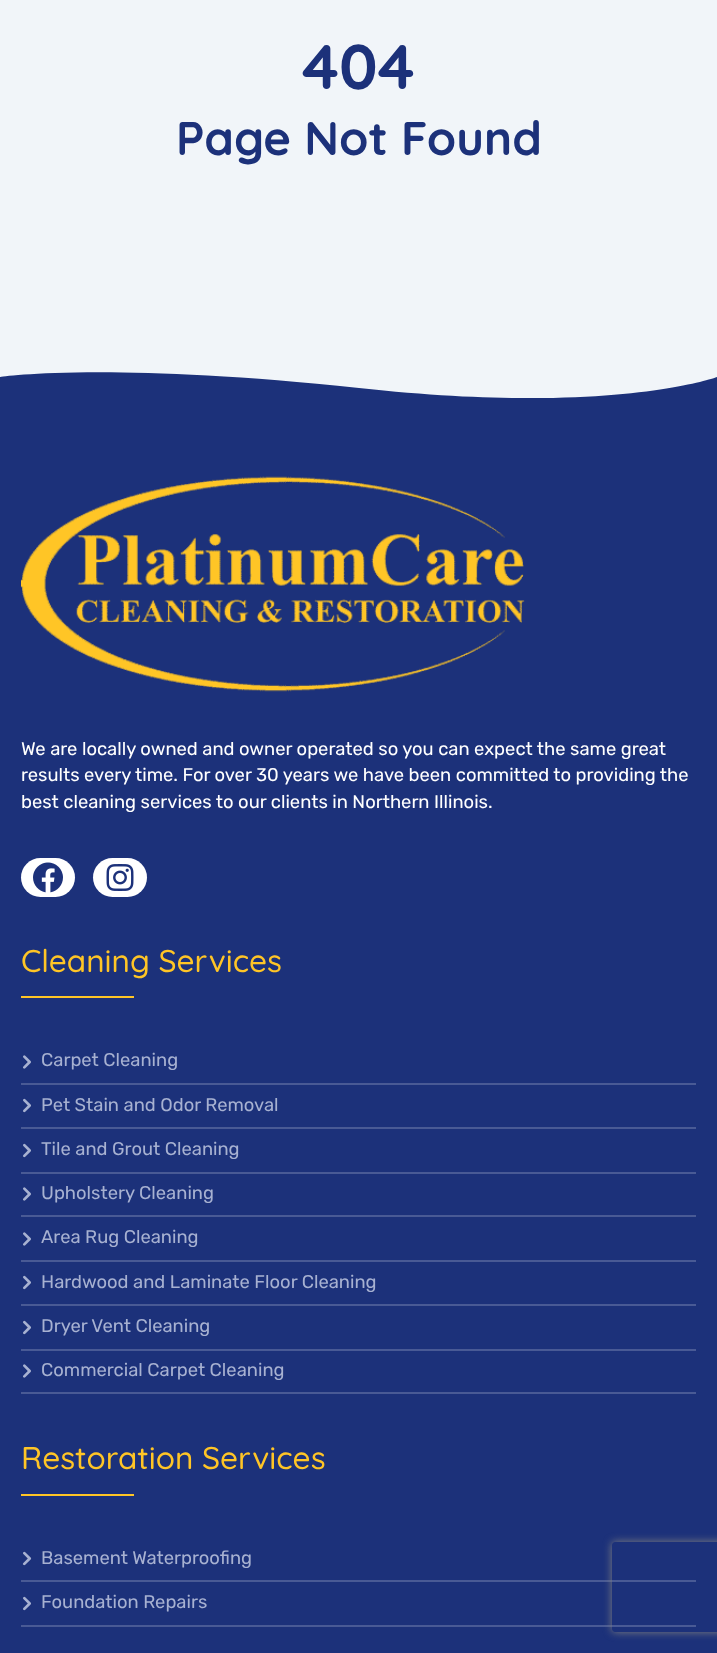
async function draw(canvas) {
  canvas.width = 717
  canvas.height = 1653
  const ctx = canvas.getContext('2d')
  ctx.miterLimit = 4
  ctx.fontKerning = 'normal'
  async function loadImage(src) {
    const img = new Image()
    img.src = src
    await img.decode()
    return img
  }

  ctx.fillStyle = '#f1f5f9'
  ctx.fillRect(0, 0, 717, 1653)
  ctx.font = 'bold 63px Quicksand'
  ctx.fillStyle = '#1c317a'
  ctx.fillText('404', 302, 89)
  ctx.font = 'bold 47.25px Quicksand'
  ctx.fillText('Page Not Found', 176, 155)
  ctx.beginPath()
  ctx.moveTo(717, 377)
  ctx.bezierCurveTo(717, 377, 613, 416, 359, 388)
  ctx.bezierCurveTo(105, 361, 0, 377, 0, 377)
  ctx.lineTo(0, 402)
  ctx.lineTo(717, 402)
  ctx.closePath()
  ctx.fill()
  ctx.fillRect(0, 402, 717, 1251)
  ctx.drawImage(await loadImage('image0.png'), 21, 476, 504, 216)
  ctx.font = '18.4px Rubik'
  ctx.fillStyle = '#fff'
  ctx.fillText('We are locally owned and owner operated so you can expect the same great', 21, 755)
  ctx.fillText('results every time. For over 30 years we have been committed to providing the', 21, 781)
  ctx.fillText('best cleaning services to our clients in Northern Illinois.', 21, 808)
  ctx.beginPath()
  ctx.roundRect(21, 858, 54, 39, 19.5)
  ctx.fill()
  ctx.drawImage(await loadImage('image1.png'), 33, 862, 30, 31)
  ctx.beginPath()
  ctx.roundRect(93, 858, 54, 39, 19.5)
  ctx.fill()
  ctx.drawImage(await loadImage('image2.png'), 106, 864, 28, 27)
  ctx.font = '500 31.5px Quicksand'
  ctx.fillStyle = '#ffc526'
  ctx.fillText('Cleaning Services', 21, 972)
  ctx.fillRect(21, 996, 113, 2)
  ctx.fillStyle = '#495a95'
  ctx.fillRect(21, 1083, 675, 2)
  ctx.drawImage(await loadImage('image3.png'), 23, 1055, 8, 14)
  ctx.font = '18.4px Rubik'
  ctx.fillStyle = '#a7b1d1'
  ctx.fillText('Carpet Cleaning', 41, 1066)
  ctx.fillStyle = '#495a95'
  ctx.fillRect(21, 1127, 675, 2)
  ctx.drawImage(await loadImage('image4.png'), 23, 1098, 8, 15)
  ctx.fillStyle = '#a7b1d1'
  ctx.fillText('Pet Stain and Odor Removal', 41, 1111)
  ctx.fillStyle = '#495a95'
  ctx.fillRect(21, 1172, 675, 2)
  ctx.drawImage(await loadImage('image4.png'), 23, 1143, 8, 15)
  ctx.fillStyle = '#a7b1d1'
  ctx.fillText('Tile and Grout Cleaning', 41, 1155)
  ctx.fillStyle = '#495a95'
  ctx.fillRect(21, 1215, 675, 2)
  ctx.drawImage(await loadImage('image3.png'), 23, 1187, 8, 14)
  ctx.fillStyle = '#a7b1d1'
  ctx.fillText('Upholstery Cleaning', 41, 1199)
  ctx.fillStyle = '#495a95'
  ctx.fillRect(21, 1260, 675, 2)
  ctx.drawImage(await loadImage('image3.png'), 23, 1232, 8, 14)
  ctx.fillStyle = '#a7b1d1'
  ctx.fillText('Area Rug Cleaning', 41, 1243)
  ctx.fillStyle = '#495a95'
  ctx.fillRect(21, 1304, 675, 2)
  ctx.drawImage(await loadImage('image4.png'), 23, 1275, 8, 15)
  ctx.fillStyle = '#a7b1d1'
  ctx.fillText('Hardwood and Laminate Floor Cleaning', 41, 1288)
  ctx.fillStyle = '#495a95'
  ctx.fillRect(21, 1349, 675, 2)
  ctx.drawImage(await loadImage('image4.png'), 23, 1320, 8, 15)
  ctx.fillStyle = '#a7b1d1'
  ctx.fillText('Dryer Vent Cleaning', 41, 1332)
  ctx.fillStyle = '#495a95'
  ctx.fillRect(21, 1392, 675, 2)
  ctx.drawImage(await loadImage('image3.png'), 23, 1364, 8, 14)
  ctx.fillStyle = '#a7b1d1'
  ctx.fillText('Commercial Carpet Cleaning', 41, 1376)
  ctx.font = '500 31.5px Quicksand'
  ctx.fillStyle = '#ffc526'
  ctx.fillText('Restoration Services', 21, 1469)
  ctx.fillRect(21, 1494, 113, 2)
  ctx.fillStyle = '#495a95'
  ctx.fillRect(21, 1580, 675, 2)
  ctx.drawImage(await loadImage('image5.png'), 22, 1551, 10, 15)
  ctx.font = '18.4px Rubik'
  ctx.fillStyle = '#a7b1d1'
  ctx.fillText('Basement Waterproofing', 41, 1564)
  ctx.fillStyle = '#495a95'
  ctx.fillRect(21, 1625, 675, 2)
  ctx.drawImage(await loadImage('image4.png'), 23, 1596, 8, 15)
  ctx.fillStyle = '#a7b1d1'
  ctx.fillText('Foundation Repairs', 41, 1608)
  ctx.save()
  ctx.beginPath()
  ctx.moveTo(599, 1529)
  ctx.lineTo(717, 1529)
  ctx.lineTo(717, 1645)
  ctx.lineTo(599, 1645)
  ctx.closePath()
  ctx.moveTo(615, 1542)
  ctx.lineTo(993, 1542)
  ctx.bezierCurveTo(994.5, 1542, 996, 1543.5, 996, 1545)
  ctx.lineTo(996, 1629)
  ctx.bezierCurveTo(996, 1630.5, 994.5, 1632, 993, 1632)
  ctx.lineTo(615, 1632)
  ctx.bezierCurveTo(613.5, 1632, 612, 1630.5, 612, 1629)
  ctx.lineTo(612, 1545)
  ctx.bezierCurveTo(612, 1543.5, 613.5, 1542, 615, 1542)
  ctx.closePath()
  ctx.clip('evenodd')
  ctx.fillStyle = '#808080'
  ctx.filter = 'blur(4px)'
  ctx.beginPath()
  ctx.roundRect(612, 1542, 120, 90, 3)
  ctx.fill()
  ctx.filter = 'none'
  ctx.restore()
}

draw(document.querySelector('canvas'))
